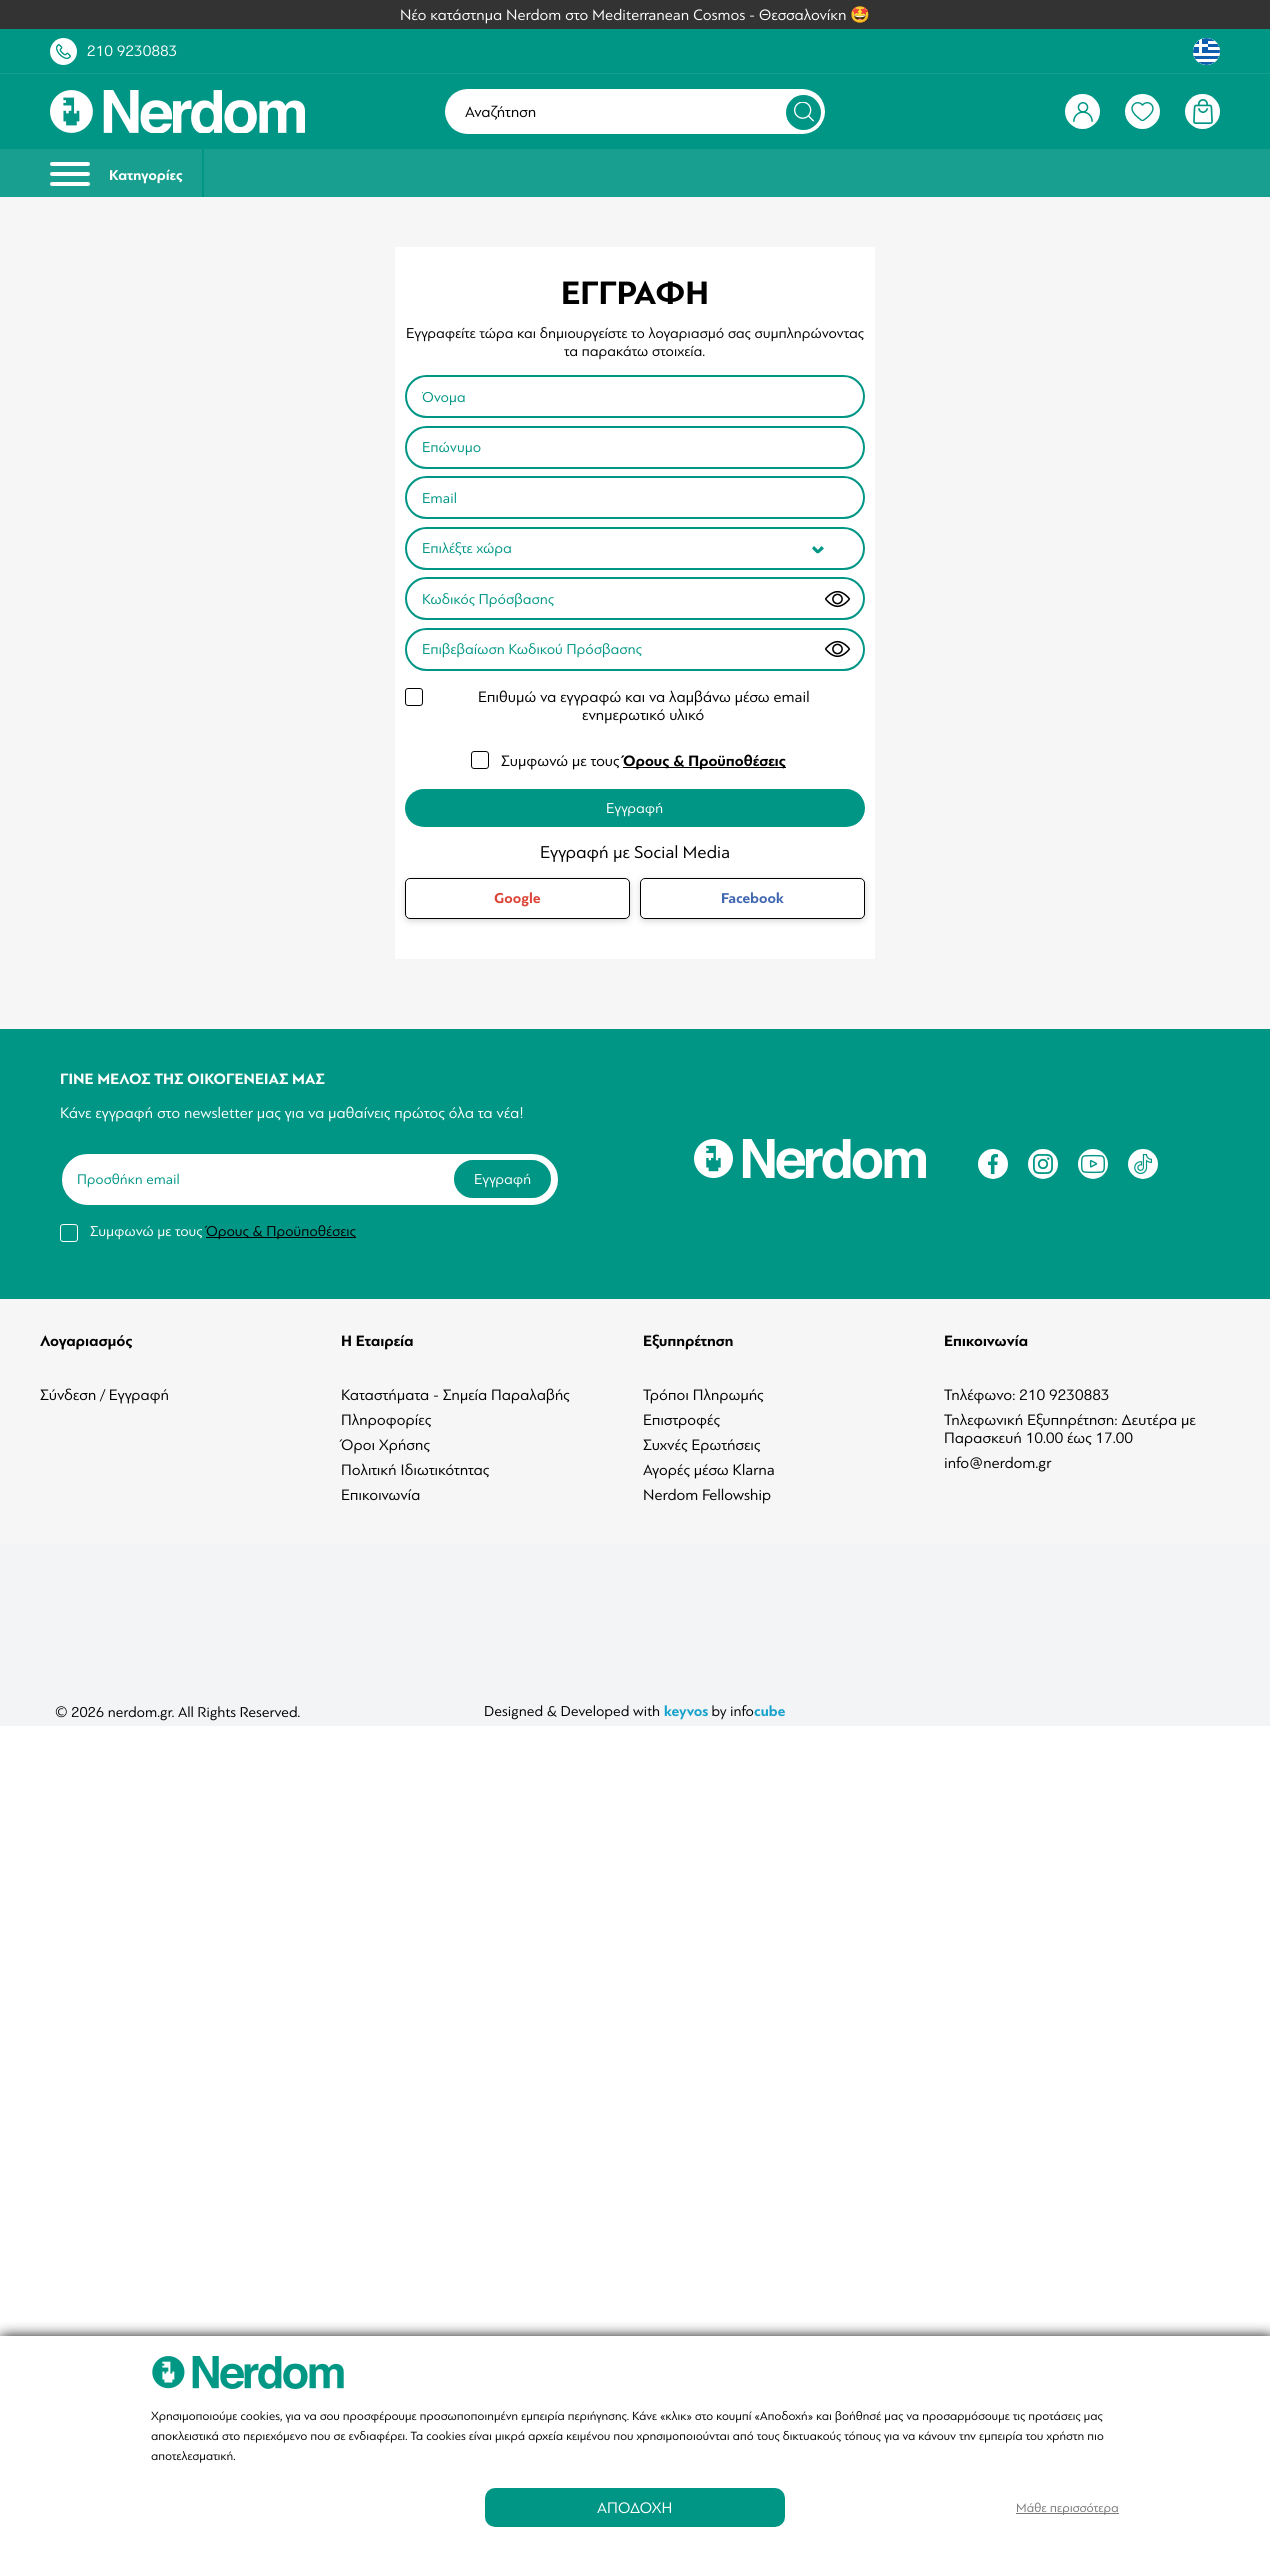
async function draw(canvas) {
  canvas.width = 1270
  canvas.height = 2567
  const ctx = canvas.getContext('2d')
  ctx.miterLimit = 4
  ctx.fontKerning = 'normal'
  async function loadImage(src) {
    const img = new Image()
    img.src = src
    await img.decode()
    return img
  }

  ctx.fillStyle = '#fff'
  ctx.fillRect(0, 0, 1270, 2567)
  ctx.fillStyle = '#f6f6f6'
  ctx.fillRect(0, 197, 1270, 1347)
  ctx.fillStyle = '#333'
  ctx.fillRect(0, 0, 1270, 29)
  ctx.drawImage(await loadImage('image0.png'), 401, 8, 445, 16)
  ctx.font = '16px Noto Color Emoji'
  ctx.fillStyle = '#fff'
  ctx.fillText('🤩', 850, 20)
  ctx.fillStyle = '#009685'
  ctx.fillRect(0, 29, 1270, 44)
  ctx.fillStyle = '#fff'
  ctx.beginPath()
  ctx.arc(63.5, 51.5, 13.5, 0, 2 * Math.PI)
  ctx.fill()
  ctx.drawImage(await loadImage('image1.png'), 56, 44, 15, 15)
  ctx.drawImage(await loadImage('image2.png'), 87, 45, 90, 12)
  ctx.beginPath()
  ctx.arc(1206.5, 51.5, 13.5, 0, 2 * Math.PI)
  ctx.fill()
  ctx.drawImage(await loadImage('image3.png'), 1193, 38, 27, 27)
  ctx.fillStyle = '#009685'
  ctx.fillRect(0, 74, 1270, 75)
  ctx.fillStyle = '#199f90'
  ctx.fillRect(0, 73, 1270, 1)
  ctx.drawImage(await loadImage('image4.png'), 50, 90, 255, 43)
  ctx.fillStyle = '#fff'
  ctx.beginPath()
  ctx.roundRect(445, 89, 380, 45, 22.5)
  ctx.fill()
  ctx.drawImage(await loadImage('image5.png'), 465, 105, 71, 15)
  ctx.fillStyle = '#009685'
  ctx.beginPath()
  ctx.arc(803.5, 112.5, 17.5, 0, 2 * Math.PI)
  ctx.fill()
  ctx.drawImage(await loadImage('image6.png'), 794, 102, 20, 20)
  ctx.fillStyle = '#fff'
  ctx.beginPath()
  ctx.arc(1082.5, 111.5, 17.5, 0, 2 * Math.PI)
  ctx.fill()
  ctx.drawImage(await loadImage('image7.png'), 1073, 102, 20, 20)
  ctx.beginPath()
  ctx.arc(1142.5, 111.5, 17.5, 0, 2 * Math.PI)
  ctx.fill()
  ctx.drawImage(await loadImage('image8.png'), 1131, 102, 23, 19)
  ctx.beginPath()
  ctx.arc(1202.5, 111.5, 17.5, 0, 2 * Math.PI)
  ctx.fill()
  ctx.drawImage(await loadImage('image9.png'), 1193, 99, 20, 25)
  ctx.fillStyle = '#199f90'
  ctx.fillRect(0, 149, 1270, 48)
  ctx.fillStyle = '#009685'
  ctx.fillRect(202, 149, 2, 48)
  ctx.fillStyle = '#fff'
  ctx.beginPath()
  ctx.roundRect(50, 162, 40, 4, 2)
  ctx.fill()
  ctx.beginPath()
  ctx.roundRect(50, 172, 40, 4, 2)
  ctx.fill()
  ctx.beginPath()
  ctx.roundRect(50, 182, 40, 4, 2)
  ctx.fill()
  ctx.drawImage(await loadImage('image10.png'), 110, 169, 73, 15)
  ctx.fillRect(395, 247, 480, 712)
  ctx.drawImage(await loadImage('image11.png'), 563, 281, 144, 23)
  ctx.drawImage(await loadImage('image12.png'), 407, 327, 457, 15)
  ctx.drawImage(await loadImage('image13.png'), 564, 345, 141, 15)
  ctx.beginPath()
  ctx.roundRect(406, 376, 458, 41, 20.5)
  ctx.strokeStyle = '#009685'
  ctx.lineWidth = 2
  ctx.stroke()
  ctx.drawImage(await loadImage('image14.png'), 422, 391, 43, 15)
  ctx.beginPath()
  ctx.roundRect(406, 427, 458, 41, 20.5)
  ctx.stroke()
  ctx.drawImage(await loadImage('image15.png'), 423, 441, 58, 15)
  ctx.beginPath()
  ctx.roundRect(406, 477, 458, 41, 20.5)
  ctx.stroke()
  ctx.drawImage(await loadImage('image16.png'), 423, 492, 33, 12)
  ctx.beginPath()
  ctx.roundRect(406, 528, 458, 41, 20.5)
  ctx.stroke()
  ctx.drawImage(await loadImage('image17.png'), 423, 542, 88, 15)
  ctx.fillStyle = '#009685'
  ctx.beginPath()
  ctx.moveTo(816.5, 551.5)
  ctx.lineTo(821.5, 546)
  ctx.lineTo(824, 548.5)
  ctx.lineTo(818.5, 553.5)
  ctx.closePath()
  ctx.fill()
  ctx.beginPath()
  ctx.moveTo(812, 548.5)
  ctx.lineTo(814, 546)
  ctx.lineTo(819.5, 551.5)
  ctx.lineTo(817, 553.5)
  ctx.closePath()
  ctx.fill()
  ctx.beginPath()
  ctx.roundRect(406, 578, 458, 41, 20.5)
  ctx.stroke()
  ctx.drawImage(await loadImage('image18.png'), 423, 593, 131, 15)
  ctx.drawImage(await loadImage('image19.png'), 825, 590, 25, 18)
  ctx.beginPath()
  ctx.roundRect(406, 629, 458, 41, 20.5)
  ctx.stroke()
  ctx.drawImage(await loadImage('image20.png'), 423, 643, 219, 15)
  ctx.drawImage(await loadImage('image19.png'), 825, 640, 25, 18)
  ctx.beginPath()
  ctx.roundRect(405.5, 688.5, 17, 17, 2.5)
  ctx.strokeStyle = '#000'
  ctx.lineWidth = 1
  ctx.stroke()
  ctx.drawImage(await loadImage('image21.png'), 479, 690, 330, 16)
  ctx.drawImage(await loadImage('image22.png'), 582, 708, 122, 16)
  ctx.beginPath()
  ctx.roundRect(471.5, 751.5, 17, 17, 2.5)
  ctx.stroke()
  ctx.drawImage(await loadImage('image23.png'), 501, 755, 119, 15)
  ctx.fillStyle = '#000'
  ctx.fillRect(623, 767, 163, 1)
  ctx.drawImage(await loadImage('image24.png'), 621, 754, 165, 16)
  ctx.fillStyle = '#009685'
  ctx.beginPath()
  ctx.roundRect(405, 789, 460, 38, 19)
  ctx.fill()
  ctx.drawImage(await loadImage('image25.png'), 607, 802, 56, 15)
  ctx.drawImage(await loadImage('image26.png'), 541, 845, 188, 17)
  ctx.fillStyle = '#00000029'
  ctx.filter = 'blur(3px)'
  ctx.beginPath()
  ctx.roundRect(405, 880, 225, 41, 5)
  ctx.fill()
  ctx.filter = 'none'
  ctx.fillStyle = '#fff'
  ctx.beginPath()
  ctx.roundRect(405.5, 878.5, 224, 40, 4.5)
  ctx.fill()
  ctx.stroke()
  ctx.drawImage(await loadImage('image27.png'), 494, 892, 47, 15)
  ctx.fillStyle = '#00000029'
  ctx.filter = 'blur(3px)'
  ctx.beginPath()
  ctx.roundRect(640, 880, 225, 41, 5)
  ctx.fill()
  ctx.filter = 'none'
  ctx.fillStyle = '#fff'
  ctx.beginPath()
  ctx.roundRect(640.5, 878.5, 224, 40, 4.5)
  ctx.fill()
  ctx.stroke()
  ctx.drawImage(await loadImage('image28.png'), 722, 892, 62, 12)
  ctx.fillStyle = '#009685'
  ctx.fillRect(0, 1029, 1270, 270)
  ctx.drawImage(await loadImage('image29.png'), 61, 1073, 264, 12)
  ctx.drawImage(await loadImage('image30.png'), 61, 1106, 462, 16)
  ctx.fillStyle = '#fff'
  ctx.beginPath()
  ctx.roundRect(61, 1153, 498, 53, 26.5)
  ctx.fill()
  ctx.strokeStyle = '#009685'
  ctx.lineWidth = 2
  ctx.stroke()
  ctx.drawImage(await loadImage('image31.png'), 78, 1173, 101, 15)
  ctx.fillStyle = '#009685'
  ctx.beginPath()
  ctx.roundRect(453, 1159, 99, 40, 20)
  ctx.fill()
  ctx.strokeStyle = '#fff'
  ctx.stroke()
  ctx.drawImage(await loadImage('image25.png'), 475, 1173, 56, 15)
  ctx.beginPath()
  ctx.roundRect(60.5, 1224.5, 17, 17, 2.5)
  ctx.lineWidth = 1
  ctx.stroke()
  ctx.drawImage(await loadImage('image32.png'), 90, 1225, 113, 15)
  ctx.fillStyle = '#000'
  ctx.fillRect(206, 1237, 150, 1)
  ctx.drawImage(await loadImage('image33.png'), 204, 1225, 152, 15)
  ctx.drawImage(await loadImage('image34.png'), 694, 1139, 232, 40)
  ctx.fillStyle = '#fff'
  ctx.beginPath()
  ctx.arc(993, 1164, 15, 0, 2 * Math.PI)
  ctx.fill()
  ctx.drawImage(await loadImage('image35.png'), 988, 1154, 10, 20)
  ctx.beginPath()
  ctx.arc(1043, 1164, 15, 0, 2 * Math.PI)
  ctx.fill()
  ctx.drawImage(await loadImage('image36.png'), 1033, 1154, 20, 20)
  ctx.beginPath()
  ctx.arc(1093, 1164, 15, 0, 2 * Math.PI)
  ctx.fill()
  ctx.drawImage(await loadImage('image37.png'), 1081, 1154, 24, 20)
  ctx.beginPath()
  ctx.arc(1143, 1164, 15, 0, 2 * Math.PI)
  ctx.fill()
  ctx.drawImage(await loadImage('image38.png'), 1134, 1154, 19, 20)
  ctx.drawImage(await loadImage('image39.png'), 40, 1335, 92, 15)
  ctx.drawImage(await loadImage('image40.png'), 40, 1388, 128, 16)
  ctx.drawImage(await loadImage('image41.png'), 342, 1334, 71, 16)
  ctx.drawImage(await loadImage('image42.png'), 342, 1388, 228, 16)
  ctx.drawImage(await loadImage('image43.png'), 342, 1413, 89, 16)
  ctx.drawImage(await loadImage('image44.png'), 339, 1439, 91, 15)
  ctx.drawImage(await loadImage('image45.png'), 342, 1463, 147, 15)
  ctx.drawImage(await loadImage('image46.png'), 342, 1489, 78, 12)
  ctx.drawImage(await loadImage('image47.png'), 644, 1334, 89, 16)
  ctx.drawImage(await loadImage('image48.png'), 643, 1388, 121, 16)
  ctx.drawImage(await loadImage('image49.png'), 644, 1414, 76, 15)
  ctx.drawImage(await loadImage('image50.png'), 643, 1439, 117, 15)
  ctx.drawImage(await loadImage('image51.png'), 643, 1463, 131, 16)
  ctx.drawImage(await loadImage('image52.png'), 644, 1488, 127, 16)
  ctx.drawImage(await loadImage('image53.png'), 945, 1334, 83, 13)
  ctx.drawImage(await loadImage('image54.png'), 944, 1388, 165, 16)
  ctx.drawImage(await loadImage('image55.png'), 944, 1413, 252, 16)
  ctx.drawImage(await loadImage('image56.png'), 945, 1432, 188, 15)
  ctx.drawImage(await loadImage('image57.png'), 945, 1456, 107, 16)
  ctx.fillStyle = '#f3f4f6'
  ctx.fillRect(0, 1544, 1270, 182)
  ctx.drawImage(await loadImage('image58.png'), 55, 1706, 245, 15)
  ctx.drawImage(await loadImage('image59.png'), 485, 1705, 175, 15)
  ctx.drawImage(await loadImage('image60.png'), 664, 1705, 44, 15)
  ctx.drawImage(await loadImage('image61.png'), 712, 1705, 15, 15)
  ctx.drawImage(await loadImage('image62.png'), 731, 1705, 23, 12)
  ctx.drawImage(await loadImage('image63.png'), 754, 1705, 31, 12)
  ctx.save()
  ctx.beginPath()
  ctx.rect(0, 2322, 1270, 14)
  ctx.clip()
  ctx.fillStyle = '#121212'
  ctx.filter = 'blur(7px)'
  ctx.beginPath()
  ctx.rect(0, 2336, 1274, 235)
  ctx.fill()
  ctx.filter = 'none'
  ctx.restore()
  ctx.drawImage(await loadImage('image64.png'), 152, 2356, 192, 33)
  ctx.drawImage(await loadImage('image65.png'), 151, 2411, 952, 12)
  ctx.drawImage(await loadImage('image66.png'), 151, 2430, 953, 13)
  ctx.drawImage(await loadImage('image67.png'), 151, 2451, 84, 12)
  ctx.fillStyle = '#009685'
  ctx.beginPath()
  ctx.roundRect(485, 2488, 300, 39, 10)
  ctx.fill()
  ctx.drawImage(await loadImage('image68.png'), 597, 2502, 74, 12)
  ctx.fillStyle = '#787878'
  ctx.fillRect(1016, 2513, 103, 1)
  ctx.drawImage(await loadImage('image69.png'), 1017, 2502, 101, 13)
}

draw(document.querySelector('canvas'))
